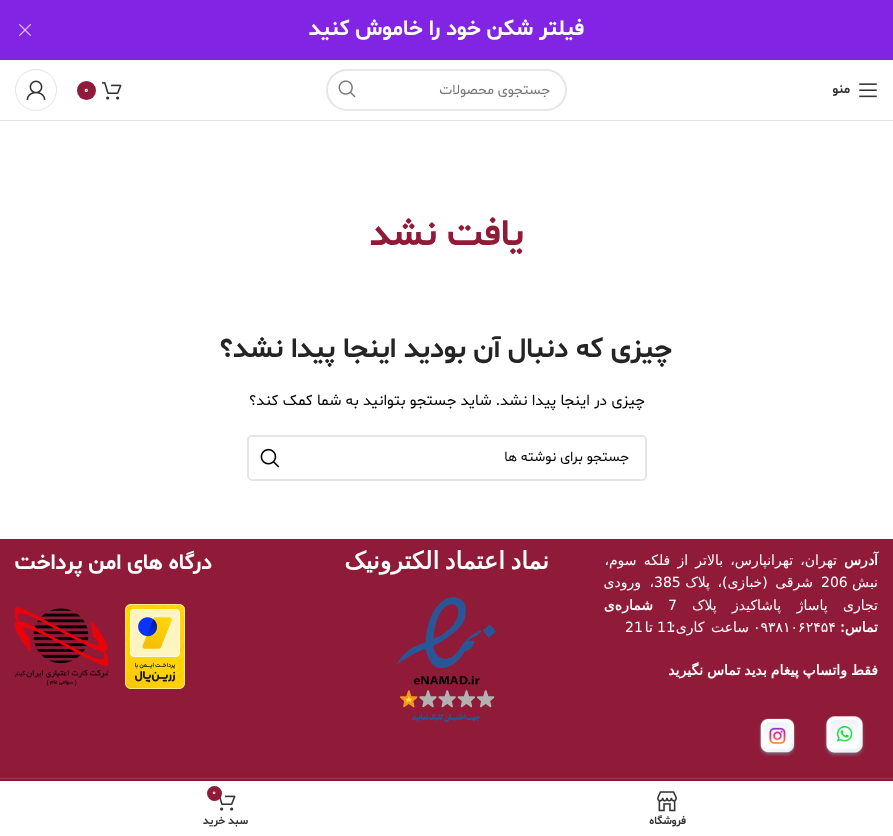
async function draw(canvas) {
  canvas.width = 893
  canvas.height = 836
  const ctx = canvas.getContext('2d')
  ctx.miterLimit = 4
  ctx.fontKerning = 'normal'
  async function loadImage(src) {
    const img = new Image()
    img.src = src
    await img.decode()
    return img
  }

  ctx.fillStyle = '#fff'
  ctx.fillRect(0, 0, 893, 836)
  ctx.fillStyle = '#8224e3'
  ctx.fillRect(0, 0, 893, 60)
  ctx.direction = 'rtl'
  ctx.font = 'bold 22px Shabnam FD'
  ctx.fillStyle = '#fff'
  ctx.fillText('فیلتر شکن خود را خاموش کنید', 584, 35)
  ctx.drawImage(await loadImage('image0.png'), 18, 23, 14, 14)
  ctx.fillStyle = '#e6e6e6'
  ctx.fillRect(0, 120, 893, 1)
  ctx.drawImage(await loadImage('image1.png'), 859, 83, 18, 15)
  ctx.font = 'bold 13px Shabnam FD'
  ctx.fillStyle = '#333'
  ctx.fillText('منو', 850, 93)
  ctx.beginPath()
  ctx.roundRect(327, 70, 239, 40, 20)
  ctx.strokeStyle = '#e6e6e6'
  ctx.lineWidth = 2
  ctx.stroke()
  ctx.font = '14px Shabnam FD'
  ctx.fillStyle = '#777'
  ctx.fillText('جستجوی محصولات', 550, 94)
  ctx.drawImage(await loadImage('image2.png'), 338, 80, 18, 18)
  ctx.drawImage(await loadImage('image3.png'), 102, 82, 20, 18)
  ctx.fillStyle = '#901b39'
  ctx.beginPath()
  ctx.arc(86.5, 90.5, 9.5, 0, 2 * Math.PI)
  ctx.fill()
  ctx.direction = 'ltr'
  ctx.font = 'bold 10px Shabnam FD'
  ctx.fillStyle = '#fff'
  ctx.fillText('0', 84, 93)
  ctx.beginPath()
  ctx.arc(36, 90, 20.5, 0, 2 * Math.PI)
  ctx.strokeStyle = '#e4e4e4'
  ctx.lineWidth = 1
  ctx.stroke()
  ctx.drawImage(await loadImage('image4.png'), 26, 80, 20, 20)
  ctx.direction = 'rtl'
  ctx.font = 'bold 37.5px Shabnam FD'
  ctx.fillStyle = '#901b39'
  ctx.fillText('یافت نشد', 524, 245)
  ctx.font = 'bold 28px Shabnam FD'
  ctx.fillStyle = '#242424'
  ctx.fillText('چیزی که دنبال آن بودید اینجا پیدا نشد؟', 672, 357)
  ctx.font = '15.4px Shabnam FD'
  ctx.fillStyle = '#000'
  ctx.fillText('چیزی در اینجا پیدا نشد. شاید جستجو بتوانید به شما کمک کند؟', 645, 405)
  ctx.beginPath()
  ctx.roundRect(248, 436, 398, 44, 4)
  ctx.strokeStyle = '#e6e6e6'
  ctx.lineWidth = 2
  ctx.stroke()
  ctx.font = '14px Shabnam FD'
  ctx.fillText('جستجو برای نوشته ها', 629, 461)
  ctx.drawImage(await loadImage('image5.png'), 260, 448, 20, 20)
  ctx.fillStyle = '#901b39'
  ctx.fillRect(0, 539, 893, 242)
  ctx.font = 'bold 14px DejaVu Sans'
  ctx.fillStyle = '#fff'
  ctx.fillText('آدرس', 878, 565)
  ctx.wordSpacing = '2.75px'
  ctx.font = '14px DejaVu Sans'
  ctx.fillText('تهران، تهرانپارس، بالاتر از فلکه سوم،', 837, 565)
  ctx.wordSpacing = '0px'
  ctx.fillText('نبش', 878, 587)
  ctx.direction = 'ltr'
  ctx.fillText('206', 821, 587)
  ctx.wordSpacing = '3px'
  ctx.direction = 'rtl'
  ctx.fillText('شرقی (خبازی)، پلاک', 813, 587)
  ctx.wordSpacing = '0px'
  ctx.direction = 'ltr'
  ctx.fillText('385', 654, 587)
  ctx.wordSpacing = '4px'
  ctx.direction = 'rtl'
  ctx.fillText('، ورودی', 654, 587)
  ctx.wordSpacing = '11px'
  ctx.fillText('تجاری پاساژ پاشاکیدز پلاک', 878, 610)
  ctx.wordSpacing = '0px'
  ctx.direction = 'ltr'
  ctx.fillText('7', 668, 610)
  ctx.direction = 'rtl'
  ctx.font = 'bold 14px DejaVu Sans'
  ctx.fillText('شماره‌ی', 653, 610)
  ctx.fillText('تماس:', 878, 632)
  ctx.direction = 'ltr'
  ctx.font = '14px DejaVu Sans'
  ctx.fillText('۰۹۳۸۱۰۶۲۴۵۴', 753, 632)
  ctx.fillText('11', 657, 632)
  ctx.wordSpacing = '2px'
  ctx.direction = 'rtl'
  ctx.fillText('ساعت کاری:', 749, 632)
  ctx.wordSpacing = '0px'
  ctx.fillText('تا', 653, 632)
  ctx.direction = 'ltr'
  ctx.fillText('21', 625, 632)
  ctx.wordSpacing = '-0.5px'
  ctx.direction = 'rtl'
  ctx.font = 'bold 14px DejaVu Sans'
  ctx.fillText('فقط واتساپ پیغام بدید تماس نگیرید', 878, 675)
  ctx.drawImage(await loadImage('image6.png'), 824, 716, 41, 41)
  ctx.drawImage(await loadImage('image7.png'), 758, 718, 38, 39)
  ctx.wordSpacing = '-2px'
  ctx.font = 'bold 24px DejaVu Sans'
  ctx.fillText('نماد اعتماد الکترونیک', 549, 569)
  ctx.drawImage(await loadImage('image8.png'), 397, 597, 99, 125)
  ctx.wordSpacing = '0px'
  ctx.font = 'bold 22px Shabnam FD'
  ctx.fillText('درگاه های امن پرداخت', 212, 569)
  ctx.drawImage(await loadImage('image9.png'), 125, 604, 60, 85)
  ctx.drawImage(await loadImage('image10.png'), 15, 607, 93, 79)
  ctx.fillStyle = '#a13d57'
  ctx.fillRect(0, 778, 893, 1)
  ctx.fillStyle = '#0000001f'
  ctx.filter = 'blur(4.5px)'
  ctx.beginPath()
  ctx.rect(0, 781, 893, 55)
  ctx.fill()
  ctx.filter = 'none'
  ctx.fillStyle = '#fff'
  ctx.fillRect(0, 781, 893, 55)
  ctx.drawImage(await loadImage('image11.png'), 657, 791, 20, 21)
  ctx.font = 'bold 11px Shabnam FD'
  ctx.fillStyle = '#333'
  ctx.fillText('فروشگاه', 686, 824)
  ctx.drawImage(await loadImage('image12.png'), 219, 795, 17, 16)
  ctx.fillStyle = '#901b39'
  ctx.beginPath()
  ctx.arc(214.5, 793.5, 7.5, 0, 2 * Math.PI)
  ctx.fill()
  ctx.direction = 'ltr'
  ctx.font = '9px Shabnam FD'
  ctx.fillStyle = '#fff'
  ctx.fillText('0', 212, 795)
  ctx.direction = 'rtl'
  ctx.font = 'bold 11px Shabnam FD'
  ctx.fillStyle = '#333'
  ctx.fillText('سبد خرید', 248, 824)
}

draw(document.querySelector('canvas'))
